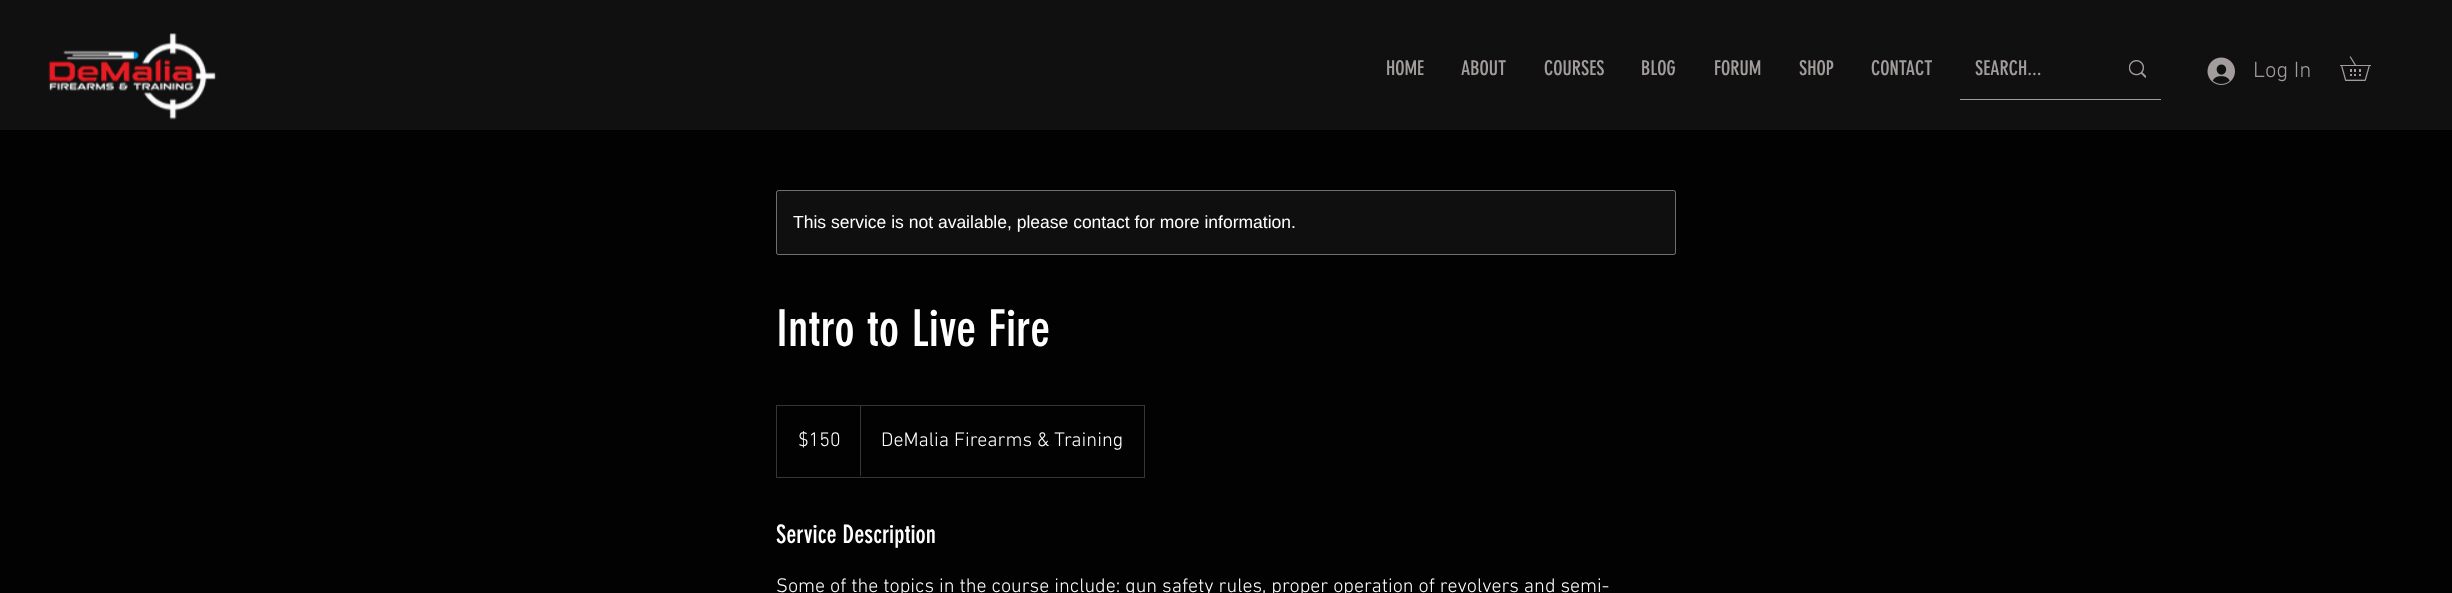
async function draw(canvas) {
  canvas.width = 2452
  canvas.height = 593
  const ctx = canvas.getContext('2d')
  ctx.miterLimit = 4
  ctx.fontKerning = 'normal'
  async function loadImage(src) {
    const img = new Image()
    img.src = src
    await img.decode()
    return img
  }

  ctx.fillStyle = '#020202'
  ctx.fillRect(0, 0, 2452, 593)
  ctx.fillStyle = '#101010'
  ctx.fillRect(0, 0, 2452, 130)
  ctx.drawImage(await loadImage('image0.png'), 48, 33, 169, 87)
  ctx.font = '20px "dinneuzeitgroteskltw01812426"'
  ctx.fillStyle = '#a29c9c'
  ctx.fillText('HOME', 1386, 75)
  ctx.fillText('ABOUT', 1461, 75)
  ctx.fillText('COURSES', 1544, 75)
  ctx.fillText('BLOG', 1641, 75)
  ctx.fillText('FORUM', 1714, 75)
  ctx.fillText('SHOP', 1799, 75)
  ctx.fillText('CONTACT', 1871, 75)
  ctx.fillRect(1960, 99, 201, 1)
  ctx.fillText('SEARCH...', 1975, 75)
  ctx.drawImage(await loadImage('image1.png'), 2129, 60, 17, 18)
  ctx.drawImage(await loadImage('image2.png'), 2207, 57, 28, 28)
  ctx.font = '300 22.5px "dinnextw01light"'
  ctx.fillText('Log In', 2253, 77)
  ctx.drawImage(await loadImage('image3.png'), 2340, 56, 31, 25)
  ctx.fillStyle = '#0f0f0f'
  ctx.beginPath()
  ctx.roundRect(776, 190, 900, 65, 2.5)
  ctx.fill()
  ctx.beginPath()
  ctx.roundRect(776.5, 190.5, 899, 64, 2)
  ctx.strokeStyle = '#ffffff66'
  ctx.stroke()
  ctx.font = '17.5px Liberation Sans'
  ctx.fillStyle = '#fff'
  ctx.fillText('This service is not available, please contact for more information.', 793, 228)
  ctx.font = '50px "dinneuzeitgroteskltw01812426"'
  ctx.fillText('Intro to Live Fire', 776, 346)
  ctx.strokeStyle = '#353535'
  ctx.strokeRect(776.5, 405.5, 368, 72)
  ctx.font = '300 20px "dinnextw01light"'
  ctx.fillText('$150', 798, 446)
  ctx.fillStyle = '#353535'
  ctx.beginPath()
  ctx.moveTo(860, 476)
  ctx.lineTo(860, 405)
  ctx.lineTo(861, 406)
  ctx.lineTo(861, 476)
  ctx.closePath()
  ctx.fill()
  ctx.fillStyle = '#fff'
  ctx.fillText('DeMalia Firearms & Training', 881, 446)
  ctx.font = '25px "dinneuzeitgroteskltw01812426"'
  ctx.fillText('Service Description', 776, 543)
  ctx.font = '300 20px "dinnextw01light"'
  ctx.fillText('Some of the topics in the course include: gun safety rules, proper operation of revolvers and semi-', 776, 592)
}

draw(document.querySelector('canvas'))
